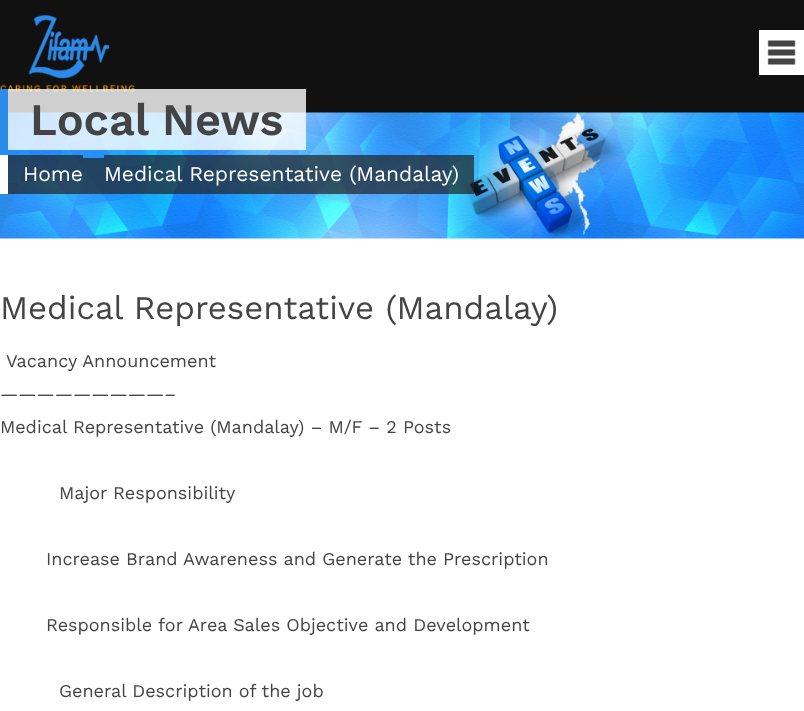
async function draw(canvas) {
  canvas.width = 804
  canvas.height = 711
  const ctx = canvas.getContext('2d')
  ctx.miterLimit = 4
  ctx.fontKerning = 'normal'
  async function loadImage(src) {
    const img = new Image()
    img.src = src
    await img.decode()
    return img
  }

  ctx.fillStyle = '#fff'
  ctx.fillRect(0, 0, 804, 711)
  ctx.fillStyle = '#111'
  ctx.fillRect(0, 0, 804, 113)
  ctx.drawImage(await loadImage('image0.png'), 0, 15, 135, 77)
  ctx.drawImage(await loadImage('image1.png'), 759, 30, 45, 45)
  ctx.drawImage(await loadImage('image2.png'), 0, 112, 804, 127)
  ctx.fillStyle = '#ffffffcc'
  ctx.fillRect(8, 89, 298, 61)
  ctx.font = '600 45px Work Sans'
  ctx.fillStyle = '#444'
  ctx.fillText('Local News', 30, 135)
  ctx.fillStyle = '#2b8be9'
  ctx.fillRect(0, 89, 8, 61)
  ctx.fillStyle = '#222222b3'
  ctx.fillRect(8, 155, 75, 39)
  ctx.font = '21px Work Sans'
  ctx.fillStyle = '#fff'
  ctx.fillText('Home', 23, 181)
  ctx.fillRect(0, 155, 8, 39)
  ctx.fillStyle = '#222222b3'
  ctx.fillRect(104, 155, 370, 39)
  ctx.fillStyle = '#fff'
  ctx.fillText('Medical Representative (Mandalay)', 104, 181)
  ctx.fillStyle = '#222222b3'
  ctx.fillRect(83, 158, 21, 36)
  ctx.font = '33px Work Sans'
  ctx.fillStyle = '#444'
  ctx.fillText('Medical Representative (Mandalay)', 0, 319)
  ctx.font = '18px Work Sans'
  ctx.fillText('Vacancy Announcement', 6, 367)
  ctx.fillText('—————————–', 0, 400)
  ctx.fillText('Medical Representative (Mandalay) – M/F – 2 Posts', 0, 433)
  ctx.fillText('Major Responsibility', 59, 499)
  ctx.fillText('Increase Brand Awareness and Generate the Prescription', 46, 565)
  ctx.fillText('Responsible for Area Sales Objective and Development', 46, 631)
  ctx.fillText('General Description of the job', 59, 697)
}

draw(document.querySelector('canvas'))
